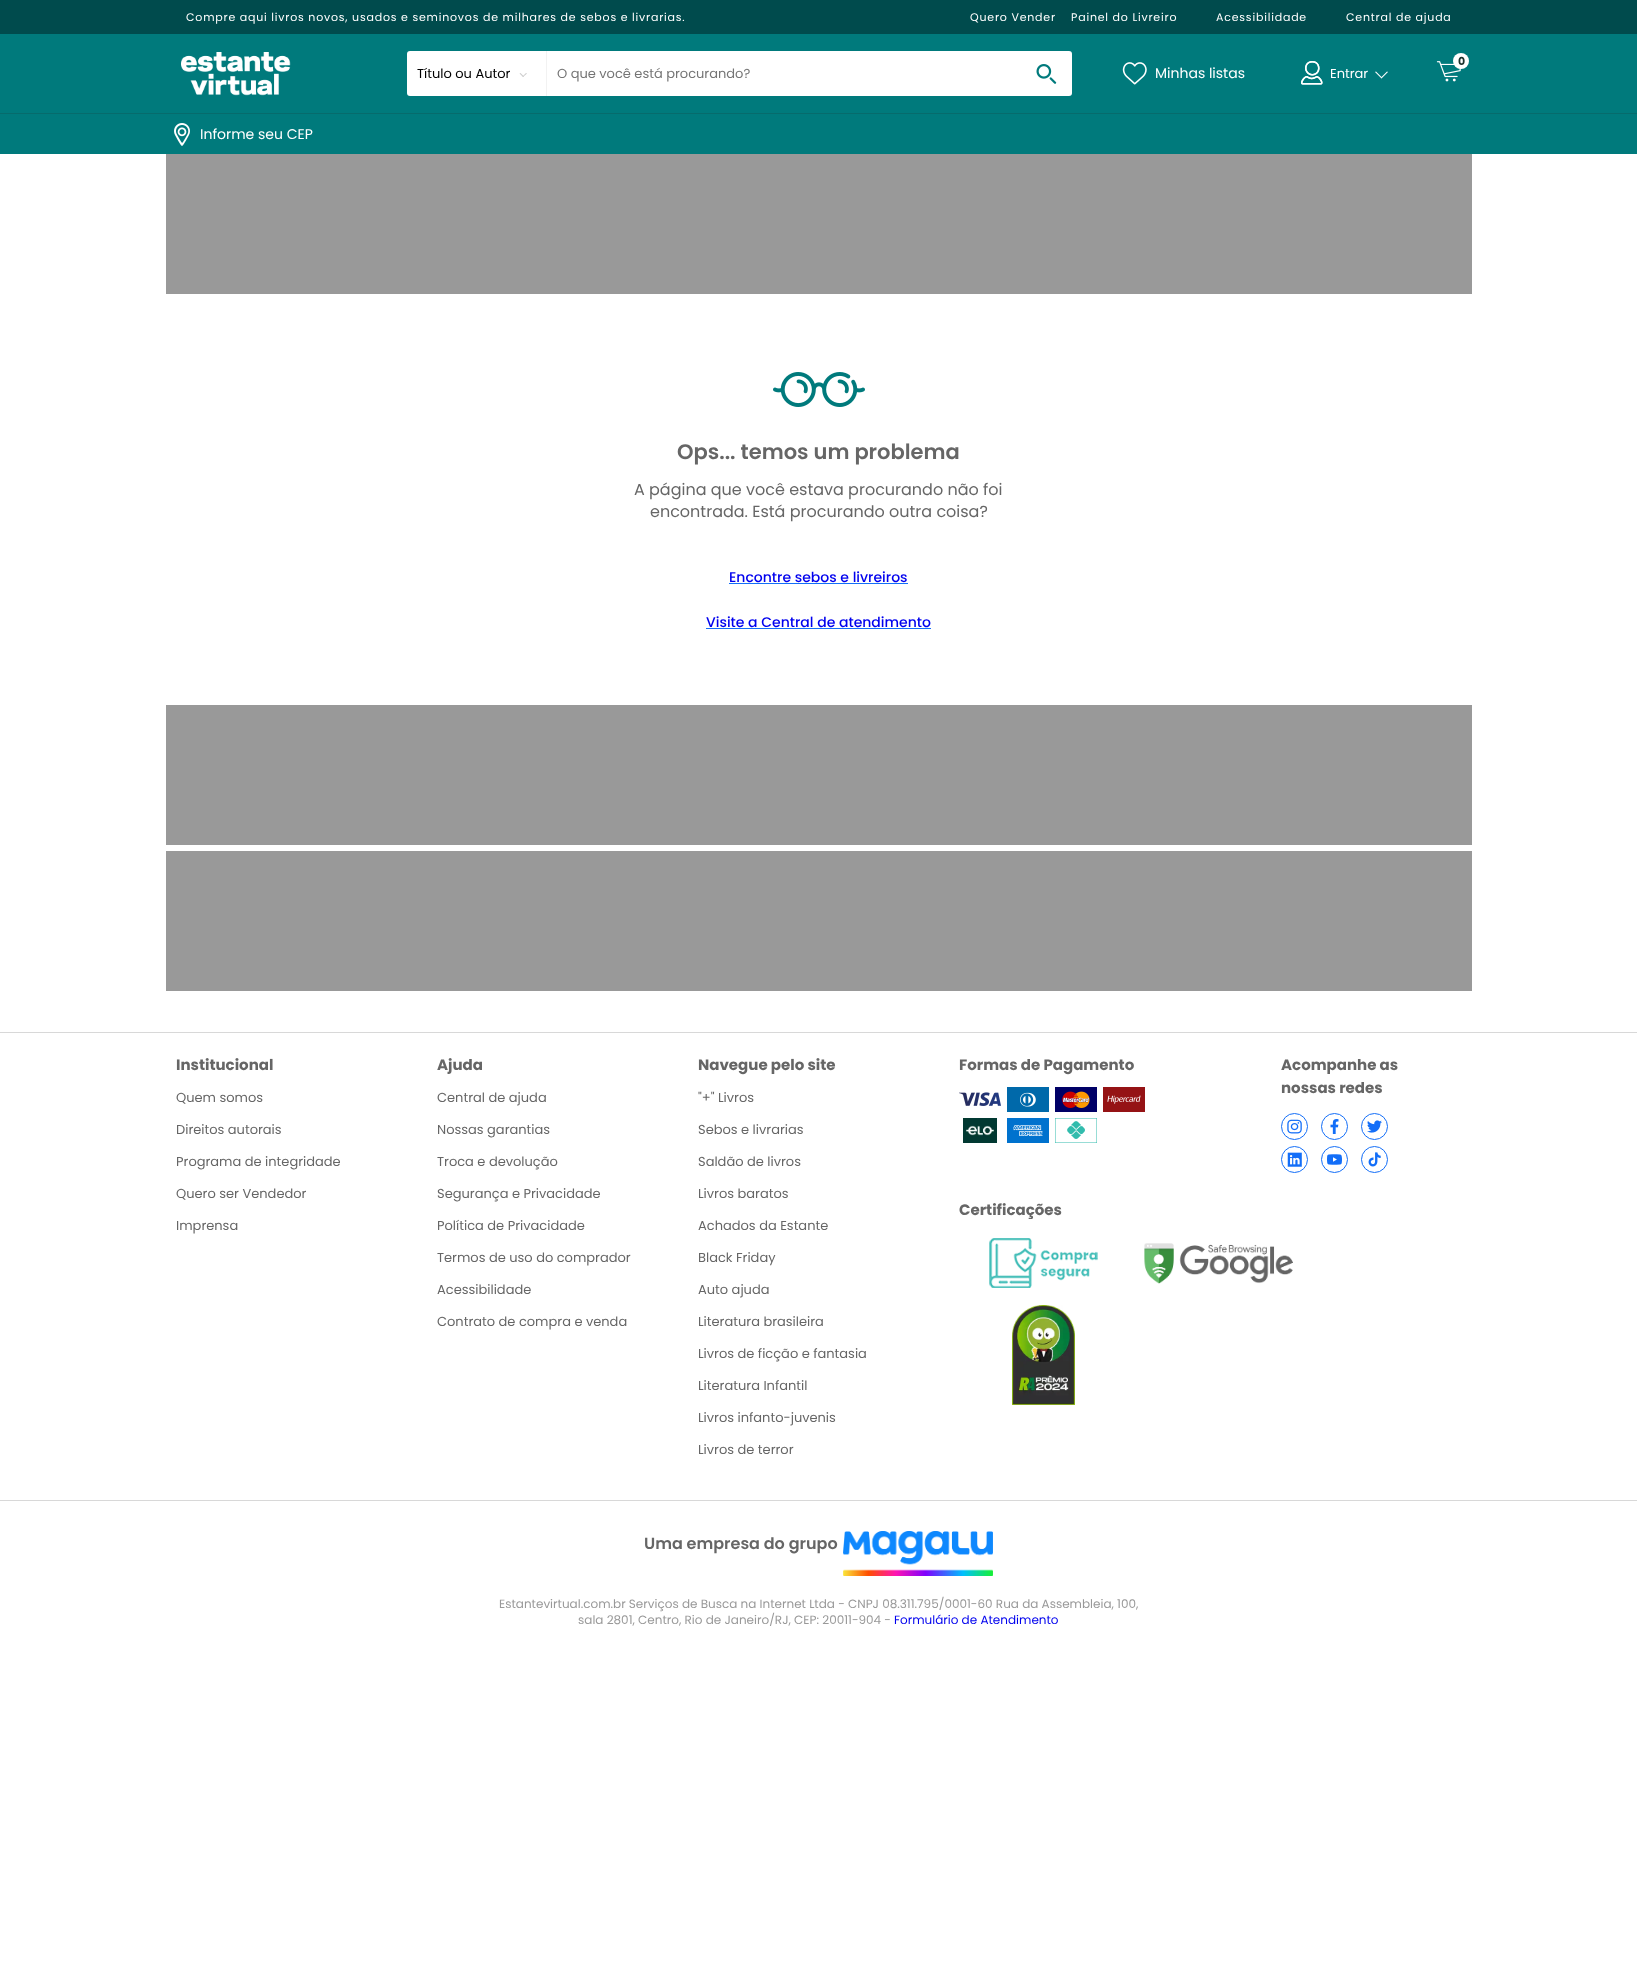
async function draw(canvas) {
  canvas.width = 1637
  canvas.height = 1968
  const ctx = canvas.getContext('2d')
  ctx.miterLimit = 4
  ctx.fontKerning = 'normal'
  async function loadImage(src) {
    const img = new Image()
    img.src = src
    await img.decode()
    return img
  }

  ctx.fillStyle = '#fff'
  ctx.fillRect(0, 0, 1637, 1968)
  ctx.fillStyle = '#007a7c'
  ctx.fillRect(0, 34, 1637, 120)
  ctx.fillStyle = '#004b4d'
  ctx.fillRect(0, 0, 1637, 34)
  ctx.letterSpacing = '0.8px'
  ctx.font = '11px Poppins'
  ctx.fillStyle = '#fff'
  ctx.fillText('Compre aqui livros novos, usados e seminovos de milhares de sebos e livrarias.', 186, 21)
  ctx.fillText('Quero Vender', 970, 21)
  ctx.fillText('Painel do Livreiro', 1071, 21)
  ctx.fillText('Acessibilidade', 1216, 21)
  ctx.fillText('Central de ajuda', 1346, 21)
  ctx.drawImage(await loadImage('image0.png'), 181, 52, 110, 44)
  ctx.drawImage(await loadImage('image1.png'), 1436, 61, 25, 21)
  ctx.beginPath()
  ctx.arc(1461, 61, 8, 0, 2 * Math.PI)
  ctx.fill()
  ctx.letterSpacing = '0px'
  ctx.font = 'bold 11px Poppins'
  ctx.fillStyle = '#1c312c'
  ctx.fillText('0', 1458, 65)
  ctx.fillStyle = '#fff'
  ctx.beginPath()
  ctx.roundRect(407, 51, 665, 45, 3)
  ctx.fill()
  ctx.fillStyle = '#f2f2f2'
  ctx.fillRect(546, 51, 1, 45)
  ctx.font = '13px Poppins'
  ctx.fillStyle = '#000'
  ctx.fillText('Título ou Autor', 417, 78)
  ctx.fillStyle = '#ccc'
  ctx.beginPath()
  ctx.moveTo(523, 77)
  ctx.lineTo(519.5, 73.5)
  ctx.lineTo(520.5, 73)
  ctx.lineTo(524, 76.5)
  ctx.closePath()
  ctx.fill()
  ctx.beginPath()
  ctx.moveTo(523, 77)
  ctx.lineTo(522.5, 76.5)
  ctx.lineTo(526, 73)
  ctx.lineTo(527, 73.5)
  ctx.closePath()
  ctx.fill()
  ctx.fillStyle = '#757575'
  ctx.fillText('O que você está procurando?', 557, 78)
  ctx.drawImage(await loadImage('image2.png'), 1036, 64, 21, 20)
  ctx.drawImage(await loadImage('image3.png'), 1122, 62, 25, 23)
  ctx.font = '14px Poppins'
  ctx.fillStyle = '#fff'
  ctx.fillText('Minhas listas', 1155, 78)
  ctx.drawImage(await loadImage('image4.png'), 1301, 61, 22, 24)
  ctx.drawImage(await loadImage('image5.png'), 1301, 61, 22, 24)
  ctx.font = '13px Poppins'
  ctx.fillText('Entrar', 1330, 78)
  ctx.beginPath()
  ctx.moveTo(1381, 77.5)
  ctx.lineTo(1387, 71.5)
  ctx.lineTo(1388, 72)
  ctx.lineTo(1381.5, 78.5)
  ctx.closePath()
  ctx.fill()
  ctx.beginPath()
  ctx.moveTo(1375, 72)
  ctx.lineTo(1376, 71.5)
  ctx.lineTo(1382, 77.5)
  ctx.lineTo(1381.5, 78.5)
  ctx.closePath()
  ctx.fill()
  ctx.fillStyle = '#066b6c'
  ctx.fillRect(0, 113, 1637, 1)
  ctx.drawImage(await loadImage('image6.png'), 174, 123, 16, 23)
  ctx.font = '14px Poppins'
  ctx.fillStyle = '#fff'
  ctx.fillText('Informe seu CEP', 200, 139)
  ctx.fillStyle = '#999'
  ctx.fillRect(166, 154, 1306, 140)
  ctx.drawImage(await loadImage('image7.png'), 773, 372, 92, 35)
  ctx.font = '600 21px Poppins'
  ctx.fillStyle = '#666'
  ctx.fillText('Ops... temos um problema', 677, 459)
  ctx.font = '16px Poppins'
  ctx.fillText('A página que você estava procurando não foi', 634, 495)
  ctx.fillText('encontrada. Está procurando outra coisa?', 650, 517)
  ctx.font = '500 14px Poppins'
  ctx.fillStyle = '#00e'
  ctx.fillText('Encontre sebos e livreiros', 729, 582)
  ctx.fillStyle = '#136ef8'
  ctx.fillRect(729, 583, 179, 1)
  ctx.fillStyle = '#00e'
  ctx.fillText('Visite a Central de atendimento', 706, 627)
  ctx.fillStyle = '#136ef8'
  ctx.fillRect(706, 628, 225, 1)
  ctx.fillStyle = '#999'
  ctx.fillRect(166, 705, 1306, 140)
  ctx.fillRect(166, 851, 1306, 140)
  ctx.fillStyle = '#d8d8d8'
  ctx.fillRect(0, 1032, 1637, 1)
  ctx.fillRect(0, 1500, 1637, 1)
  ctx.font = 'bold 15px Poppins'
  ctx.fillStyle = '#666'
  ctx.fillText('Institucional', 176, 1070)
  ctx.font = '13px Poppins'
  ctx.fillText('Quem somos', 176, 1102)
  ctx.fillText('Direitos autorais', 176, 1134)
  ctx.fillText('Programa de integridade', 176, 1166)
  ctx.fillText('Quero ser Vendedor', 176, 1198)
  ctx.fillText('Imprensa', 176, 1230)
  ctx.font = 'bold 15px Poppins'
  ctx.fillText('Ajuda', 437, 1070)
  ctx.font = '13px Poppins'
  ctx.fillText('Central de ajuda', 437, 1102)
  ctx.fillText('Nossas garantias', 437, 1134)
  ctx.fillText('Troca e devolução', 437, 1166)
  ctx.fillText('Segurança e Privacidade', 437, 1198)
  ctx.fillText('Política de Privacidade', 437, 1230)
  ctx.fillText('Termos de uso do comprador', 437, 1262)
  ctx.fillText('Acessibilidade', 437, 1294)
  ctx.fillText('Contrato de compra e venda', 437, 1326)
  ctx.font = 'bold 15px Poppins'
  ctx.fillText('Navegue pelo site', 698, 1070)
  ctx.font = '13px Poppins'
  ctx.fillText('"+" Livros', 698, 1102)
  ctx.fillText('Sebos e livrarias', 698, 1134)
  ctx.fillText('Saldão de livros', 698, 1166)
  ctx.fillText('Livros baratos', 698, 1198)
  ctx.fillText('Achados da Estante', 698, 1230)
  ctx.fillText('Black Friday', 698, 1262)
  ctx.fillText('Auto ajuda', 698, 1294)
  ctx.fillText('Literatura brasileira', 698, 1326)
  ctx.fillText('Livros de ficção e fantasia', 698, 1358)
  ctx.fillText('Literatura Infantil', 698, 1390)
  ctx.fillText('Livros infanto-juvenis', 698, 1422)
  ctx.fillText('Livros de terror', 698, 1454)
  ctx.font = 'bold 15px Poppins'
  ctx.fillText('Formas de Pagamento', 959, 1070)
  ctx.drawImage(await loadImage('image8.png'), 959, 1092, 42, 14)
  ctx.drawImage(await loadImage('image9.png'), 1007, 1087, 42, 25)
  ctx.drawImage(await loadImage('image10.png'), 1055, 1087, 42, 25)
  ctx.drawImage(await loadImage('image11.png'), 1103, 1087, 42, 25)
  ctx.drawImage(await loadImage('image12.png'), 963, 1118, 34, 25)
  ctx.drawImage(await loadImage('image13.png'), 1007, 1118, 42, 25)
  ctx.drawImage(await loadImage('image14.png'), 1055, 1118, 42, 25)
  ctx.fillText('Acompanhe as', 1281, 1070)
  ctx.fillText('nossas redes', 1281, 1093)
  ctx.beginPath()
  ctx.arc(1294.5, 1126.5, 13, 0, 2 * Math.PI)
  ctx.strokeStyle = '#136ef8'
  ctx.stroke()
  ctx.drawImage(await loadImage('image15.png'), 1287, 1119, 15, 15)
  ctx.beginPath()
  ctx.arc(1334.5, 1126.5, 13, 0, 2 * Math.PI)
  ctx.stroke()
  ctx.drawImage(await loadImage('image16.png'), 1330, 1119, 9, 15)
  ctx.beginPath()
  ctx.arc(1374.5, 1126.5, 13, 0, 2 * Math.PI)
  ctx.stroke()
  ctx.drawImage(await loadImage('image17.png'), 1367, 1120, 15, 13)
  ctx.beginPath()
  ctx.arc(1294.5, 1159.5, 13, 0, 2 * Math.PI)
  ctx.stroke()
  ctx.drawImage(await loadImage('image18.png'), 1287, 1152, 15, 15)
  ctx.beginPath()
  ctx.arc(1334.5, 1159.5, 13, 0, 2 * Math.PI)
  ctx.stroke()
  ctx.drawImage(await loadImage('image19.png'), 1327, 1154, 15, 11)
  ctx.beginPath()
  ctx.arc(1374.5, 1159.5, 13, 0, 2 * Math.PI)
  ctx.stroke()
  ctx.drawImage(await loadImage('image20.png'), 1368, 1152, 13, 15)
  ctx.fillText('Certificações', 959, 1215)
  ctx.drawImage(await loadImage('image21.png'), 989, 1238, 109, 50)
  ctx.drawImage(await loadImage('image22.png'), 1144, 1243, 149, 41)
  ctx.drawImage(await loadImage('image23.png'), 1012, 1305, 63, 100)
  ctx.font = '600 16px Poppins'
  ctx.fillText('Uma empresa do grupo', 644, 1549)
  ctx.drawImage(await loadImage('image24.png'), 843, 1531, 150, 45)
  ctx.font = '12px Poppins'
  ctx.fillStyle = '#999'
  ctx.fillText('Estantevirtual.com.br Serviços de Busca na Internet Ltda - CNPJ 08.311.795/0001-60 Rua da Assembleia, 100,', 499, 1608)
  ctx.fillText('sala 2801, Centro, Rio de Janeiro/RJ, CEP: 20011-904 -', 578, 1624)
  ctx.fillStyle = '#00e'
  ctx.fillText('Formulário de Atendimento', 894, 1624)
}

draw(document.querySelector('canvas'))
